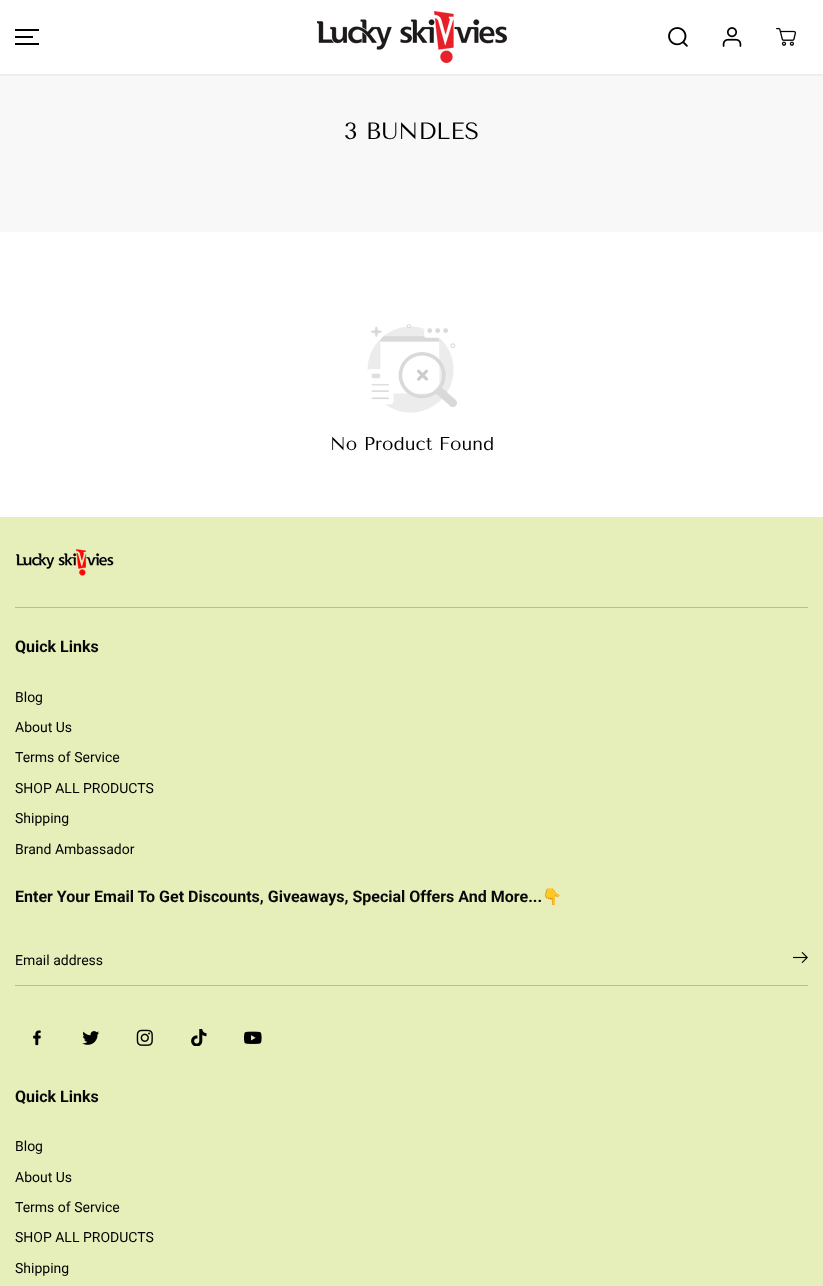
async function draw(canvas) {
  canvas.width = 823
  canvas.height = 1286
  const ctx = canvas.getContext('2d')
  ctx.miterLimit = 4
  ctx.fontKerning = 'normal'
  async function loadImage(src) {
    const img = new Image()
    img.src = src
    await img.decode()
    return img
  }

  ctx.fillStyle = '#fff'
  ctx.fillRect(0, 0, 823, 1286)
  ctx.fillStyle = '#f8f8f8'
  ctx.fillRect(0, 74, 823, 158)
  ctx.save()
  ctx.beginPath()
  ctx.rect(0, 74, 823, 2)
  ctx.clip()
  ctx.fillStyle = '#0000000d'
  ctx.filter = 'blur(1px)'
  ctx.beginPath()
  ctx.rect(0, 2, 823, 74)
  ctx.fill()
  ctx.filter = 'none'
  ctx.restore()
  ctx.fillStyle = '#000'
  ctx.fillRect(15, 36, 18, 2)
  ctx.fillRect(15, 29, 24, 2)
  ctx.fillRect(15, 43, 24, 2)
  ctx.drawImage(await loadImage('image0.png'), 317, 11, 190, 52)
  ctx.drawImage(await loadImage('image1.png'), 668, 27, 20, 20)
  ctx.drawImage(await loadImage('image2.png'), 722, 27, 20, 20)
  ctx.drawImage(await loadImage('image3.png'), 776, 27, 20, 19)
  ctx.font = '23.5px Tenor Sans'
  ctx.fillText('3 BUNDLES', 344, 139)
  ctx.drawImage(await loadImage('image4.png'), 367, 324, 90, 89)
  ctx.font = '18.5px Tenor Sans'
  ctx.fillText('No Product Found', 330, 450)
  ctx.fillStyle = '#e6eeba'
  ctx.fillRect(0, 517, 823, 769)
  ctx.fillStyle = '#b8be95'
  ctx.fillRect(15, 607, 793, 1)
  ctx.drawImage(await loadImage('image5.png'), 15, 549, 99, 27)
  ctx.font = 'bold 16px Roboto'
  ctx.fillStyle = '#080808'
  ctx.fillText('Quick Links', 15, 652)
  ctx.font = '14px Roboto'
  ctx.fillStyle = '#000'
  ctx.fillText('Blog', 15, 702)
  ctx.fillText('About Us', 15, 732)
  ctx.fillText('Terms of Service', 15, 762)
  ctx.fillText('SHOP ALL PRODUCTS', 15, 793)
  ctx.fillText('Shipping', 15, 823)
  ctx.fillText('Brand Ambassador', 15, 854)
  ctx.font = 'bold 16px Roboto'
  ctx.fillStyle = '#080808'
  ctx.fillText('Enter Your Email To Get Discounts, Giveaways, Special Offers And More...', 15, 902)
  ctx.font = 'bold 16px Noto Color Emoji'
  ctx.fillText('👇', 542, 902)
  ctx.fillStyle = '#b8be95'
  ctx.fillRect(15, 985, 793, 1)
  ctx.font = '14px Roboto'
  ctx.fillStyle = '#000'
  ctx.fillText('Email address', 15, 965)
  ctx.drawImage(await loadImage('image6.png'), 793, 951, 15, 12)
  ctx.drawImage(await loadImage('image7.png'), 33, 1030, 8, 16)
  ctx.drawImage(await loadImage('image8.png'), 82, 1031, 17, 14)
  ctx.drawImage(await loadImage('image9.png'), 136, 1029, 17, 17)
  ctx.drawImage(await loadImage('image10.png'), 191, 1029, 16, 17)
  ctx.drawImage(await loadImage('image11.png'), 244, 1031, 18, 13)
  ctx.font = 'bold 16px Roboto'
  ctx.fillStyle = '#080808'
  ctx.fillText('Quick Links', 15, 1102)
  ctx.font = '14px Roboto'
  ctx.fillStyle = '#000'
  ctx.fillText('Blog', 15, 1151)
  ctx.fillText('About Us', 15, 1182)
  ctx.fillText('Terms of Service', 15, 1212)
  ctx.fillText('SHOP ALL PRODUCTS', 15, 1242)
  ctx.fillText('Shipping', 15, 1273)
}

draw(document.querySelector('canvas'))
